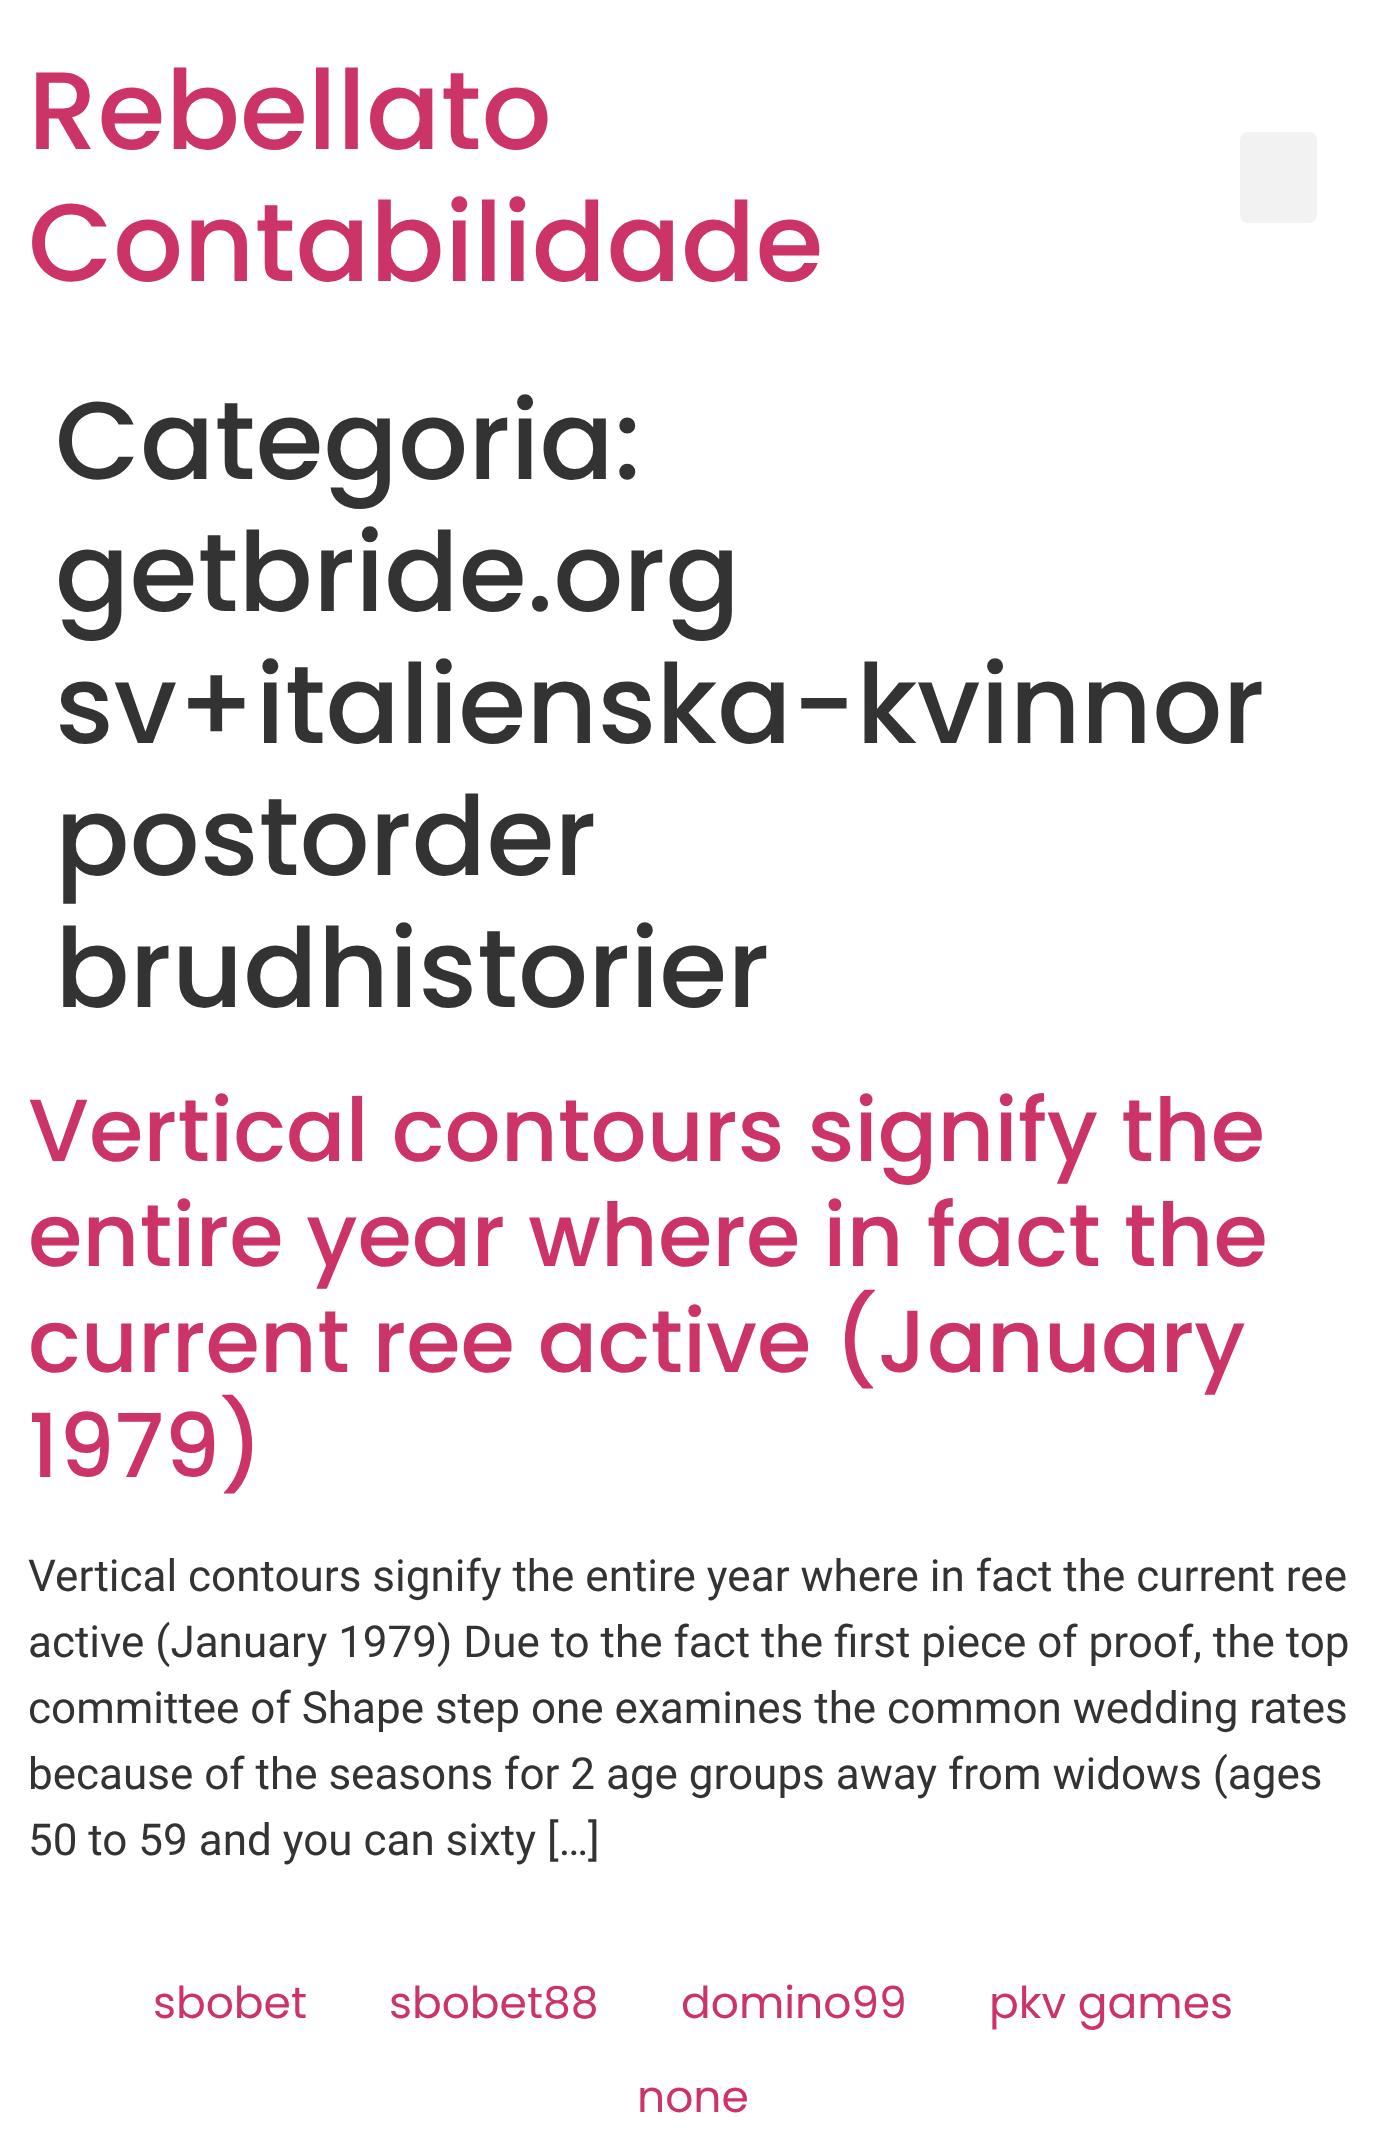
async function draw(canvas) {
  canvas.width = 1386
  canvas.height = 2136
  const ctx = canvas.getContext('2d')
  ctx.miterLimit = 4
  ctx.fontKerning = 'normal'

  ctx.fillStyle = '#fff'
  ctx.fillRect(0, 0, 1386, 2136)
  ctx.font = '500 110px Poppins'
  ctx.fillStyle = '#c36'
  ctx.fillText('Rebellato', 28, 149)
  ctx.fillText('Contabilidade', 28, 281)
  ctx.fillStyle = '#f2f2f2'
  ctx.beginPath()
  ctx.roundRect(1240, 132, 77, 91, 8)
  ctx.fill()
  ctx.fillStyle = '#333'
  ctx.fillText('Categoria:', 55, 479)
  ctx.fillText('getbride.org', 55, 611)
  ctx.fillText('sv+italienska-kvinnor', 55, 743)
  ctx.fillText('postorder', 55, 875)
  ctx.fillText('brudhistorier', 55, 1007)
  ctx.font = '500 88px Poppins'
  ctx.fillStyle = '#c36'
  ctx.fillText('Vertical contours signify the', 28, 1161)
  ctx.fillText('entire year where in fact the', 28, 1266)
  ctx.fillText('current ree active (January', 28, 1372)
  ctx.fillText('1979)', 28, 1477)
  ctx.font = '44px Roboto'
  ctx.fillStyle = '#333'
  ctx.fillText('Vertical contours signify the entire year where in fact the current ree', 28, 1591)
  ctx.fillText('active (January 1979) Due to the fact the first piece of proof, the top', 28, 1657)
  ctx.fillText('committee of Shape step one examines the common wedding rates', 28, 1723)
  ctx.fillText('because of the seasons for 2 age groups away from widows (ages', 28, 1789)
  ctx.fillText('50 to 59 and you can sixty […]', 28, 1855)
  ctx.font = '44px Poppins'
  ctx.fillStyle = '#c36'
  ctx.fillText('sbobet', 153, 2018)
  ctx.fillText('sbobet88', 389, 2018)
  ctx.fillText('domino99', 681, 2018)
  ctx.fillText('pkv games', 989, 2018)
  ctx.fillText('none', 637, 2112)
}

draw(document.querySelector('canvas'))
